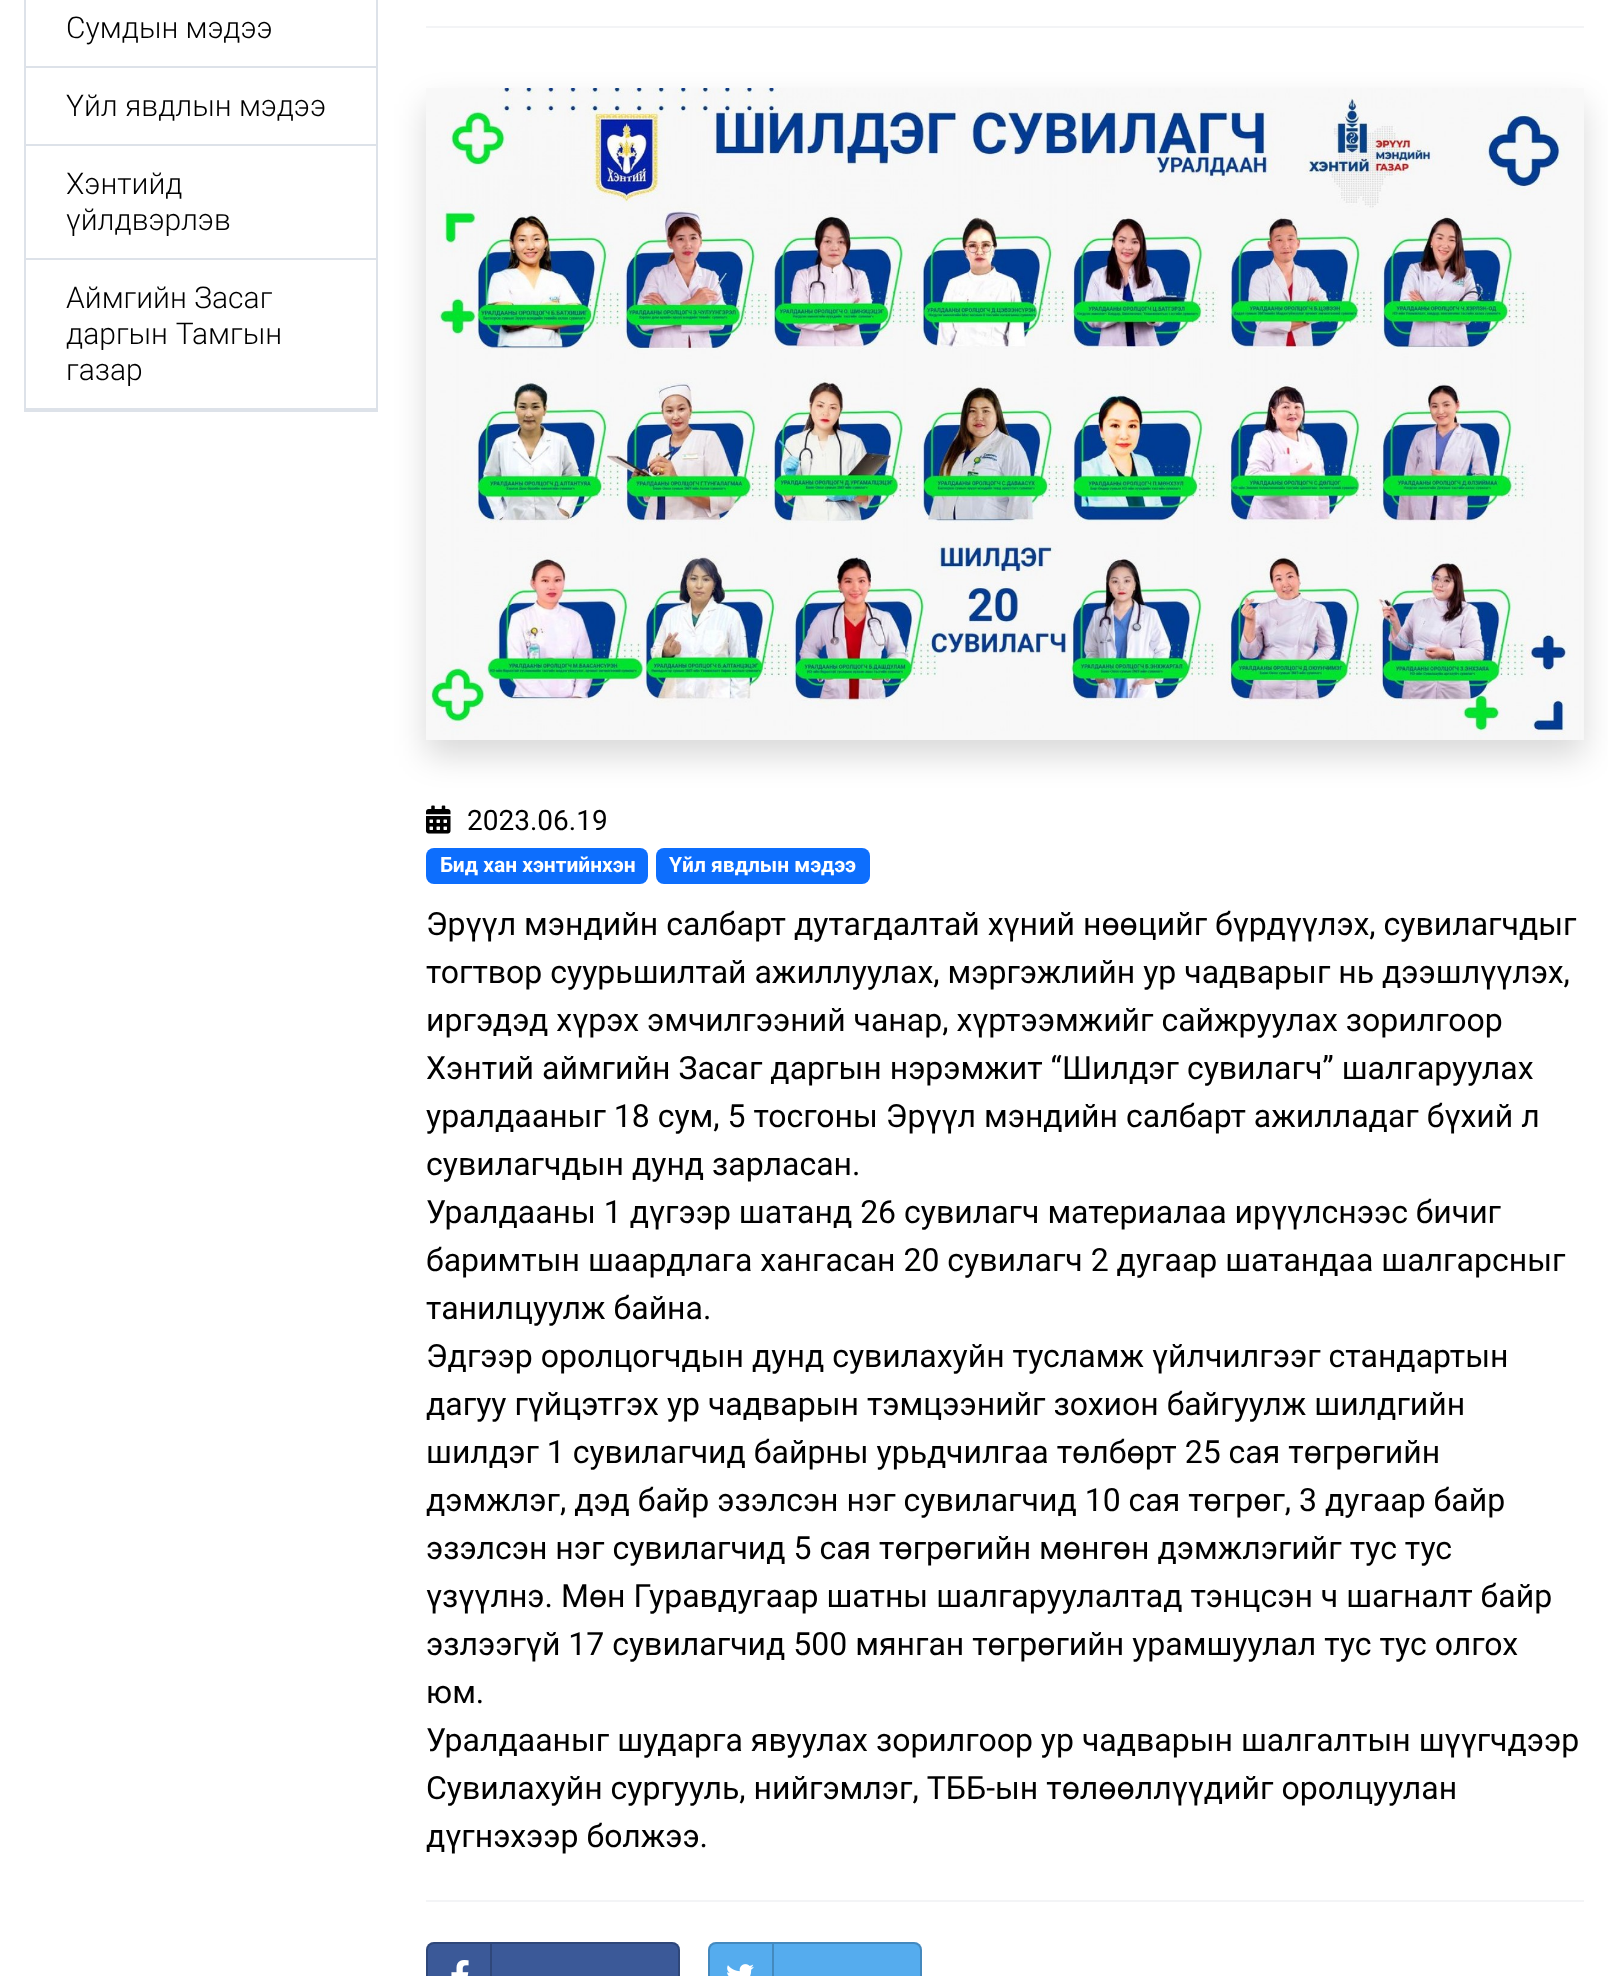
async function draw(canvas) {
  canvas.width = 1608
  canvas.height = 1976
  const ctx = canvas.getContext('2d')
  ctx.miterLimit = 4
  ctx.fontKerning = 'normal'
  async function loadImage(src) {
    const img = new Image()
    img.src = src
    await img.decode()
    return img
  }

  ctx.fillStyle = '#fff'
  ctx.fillRect(0, 0, 1608, 1976)
  ctx.fillStyle = '#00000026'
  ctx.filter = 'blur(16px)'
  ctx.beginPath()
  ctx.rect(426, 104, 1158, 652)
  ctx.fill()
  ctx.filter = 'none'
  ctx.strokeStyle = '#dde2e9'
  ctx.lineWidth = 2
  ctx.strokeRect(25, -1, 352, 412)
  ctx.fillStyle = '#dde2e9'
  ctx.fillRect(26, 66, 350, 2)
  ctx.font = '300 30px Roboto'
  ctx.fillStyle = '#000'
  ctx.fillText('Сумдын мэдээ', 66, 38)
  ctx.fillStyle = '#dde2e9'
  ctx.fillRect(26, 144, 350, 2)
  ctx.fillStyle = '#000'
  ctx.fillText('Үйл явдлын мэдээ', 66, 116)
  ctx.fillStyle = '#dde2e9'
  ctx.fillRect(26, 258, 350, 2)
  ctx.fillStyle = '#000'
  ctx.fillText('Хэнтийд', 66, 194)
  ctx.fillText('үйлдвэрлэв', 66, 230)
  ctx.fillStyle = '#dde2e9'
  ctx.fillRect(26, 408, 350, 2)
  ctx.fillStyle = '#000'
  ctx.fillText('Аймгийн Засаг', 66, 308)
  ctx.wordSpacing = '1px'
  ctx.fillText('даргын Тамгын', 66, 344)
  ctx.wordSpacing = '0px'
  ctx.fillText('газар', 66, 380)
  ctx.fillStyle = '#f3f4f6'
  ctx.fillRect(426, 26, 1158, 2)
  ctx.drawImage(await loadImage('image0.png'), 426, 88, 1158, 652)
  ctx.drawImage(await loadImage('image1.png'), 426, 805, 25, 29)
  ctx.font = '28px Roboto'
  ctx.fillStyle = '#000'
  ctx.fillText('2023.06.19', 467, 830)
  ctx.fillStyle = '#0d6efd'
  ctx.beginPath()
  ctx.roundRect(426, 848, 222, 36, 8)
  ctx.fill()
  ctx.font = 'bold 21px Roboto'
  ctx.fillStyle = '#fff'
  ctx.fillText('Бид хан хэнтийнхэн', 440, 872)
  ctx.fillStyle = '#0d6efd'
  ctx.beginPath()
  ctx.roundRect(656, 848, 214, 36, 8)
  ctx.fill()
  ctx.fillStyle = '#fff'
  ctx.fillText('Үйл явдлын мэдээ', 669, 872)
  ctx.font = '32px Roboto'
  ctx.fillStyle = '#000'
  ctx.fillText('Эрүүл мэндийн салбарт дутагдалтай хүний нөөцийг бүрдүүлэх, сувилагчдыг', 426, 935)
  ctx.fillText('тогтвор суурьшилтай ажиллуулах, мэргэжлийн ур чадварыг нь дээшлүүлэх,', 426, 983)
  ctx.fillText('иргэдэд хүрэх эмчилгээний чанар, хүртээмжийг сайжруулах зорилгоор', 426, 1031)
  ctx.fillText('Хэнтий аймгийн Засаг даргын нэрэмжит “Шилдэг сувилагч” шалгаруулах', 426, 1079)
  ctx.fillText('уралдааныг 18 сум, 5 тосгоны Эрүүл мэндийн салбарт ажилладаг бүхий л', 426, 1127)
  ctx.fillText('сувилагчдын дунд зарласан.', 426, 1175)
  ctx.fillText('Уралдааны 1 дүгээр шатанд 26 сувилагч материалаа ирүүлснээс бичиг', 426, 1223)
  ctx.fillText('баримтын шаардлага хангасан 20 сувилагч 2 дугаар шатандаа шалгарсныг', 426, 1271)
  ctx.fillText('танилцуулж байна.', 426, 1319)
  ctx.fillText('Эдгээр оролцогчдын дунд сувилахуйн тусламж үйлчилгээг стандартын', 426, 1367)
  ctx.fillText('дагуу гүйцэтгэх ур чадварын тэмцээнийг зохион байгуулж шилдгийн', 426, 1415)
  ctx.fillText('шилдэг 1 сувилагчид байрны урьдчилгаа төлбөрт 25 сая төгрөгийн', 426, 1463)
  ctx.fillText('дэмжлэг, дэд байр эзэлсэн нэг сувилагчид 10 сая төгрөг, 3 дугаар байр', 426, 1511)
  ctx.fillText('эзэлсэн нэг сувилагчид 5 сая төгрөгийн мөнгөн дэмжлэгийг тус тус', 426, 1559)
  ctx.fillText('үзүүлнэ. Мөн Гуравдугаар шатны шалгаруулалтад тэнцсэн ч шагналт байр', 426, 1607)
  ctx.fillText('эзлээгүй 17 сувилагчид 500 мянган төгрөгийн урамшуулал тус тус олгох', 426, 1655)
  ctx.fillText('юм.', 426, 1703)
  ctx.fillText('Уралдааныг шударга явуулах зорилгоор ур чадварын шалгалтын шүүгчдээр', 426, 1751)
  ctx.fillText('Сувилахуйн сургууль, нийгэмлэг, ТББ-ын төлөөллүүдийг оролцуулан', 426, 1799)
  ctx.fillText('дүгнэхээр болжээ.', 426, 1847)
  ctx.fillStyle = '#f3f4f6'
  ctx.fillRect(426, 1900, 1158, 2)
  ctx.fillStyle = '#3b5998'
  ctx.beginPath()
  ctx.roundRect(426, 1942, 254, 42, 8)
  ctx.fill()
  ctx.beginPath()
  ctx.roundRect(427, 1943, 252, 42, 7)
  ctx.strokeStyle = '#00000033'
  ctx.stroke()
  ctx.fillStyle = '#2f477a'
  ctx.fillRect(490, 1944, 2, 32)
  ctx.drawImage(await loadImage('image2.png'), 451, 1960, 18, 16)
  ctx.fillStyle = '#55acee'
  ctx.beginPath()
  ctx.roundRect(708, 1942, 214, 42, 8)
  ctx.fill()
  ctx.beginPath()
  ctx.roundRect(709, 1943, 212, 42, 7)
  ctx.stroke()
  ctx.fillStyle = '#448abe'
  ctx.fillRect(772, 1944, 2, 32)
  ctx.drawImage(await loadImage('image3.png'), 727, 1964, 27, 12)
}

draw(document.querySelector('canvas'))
